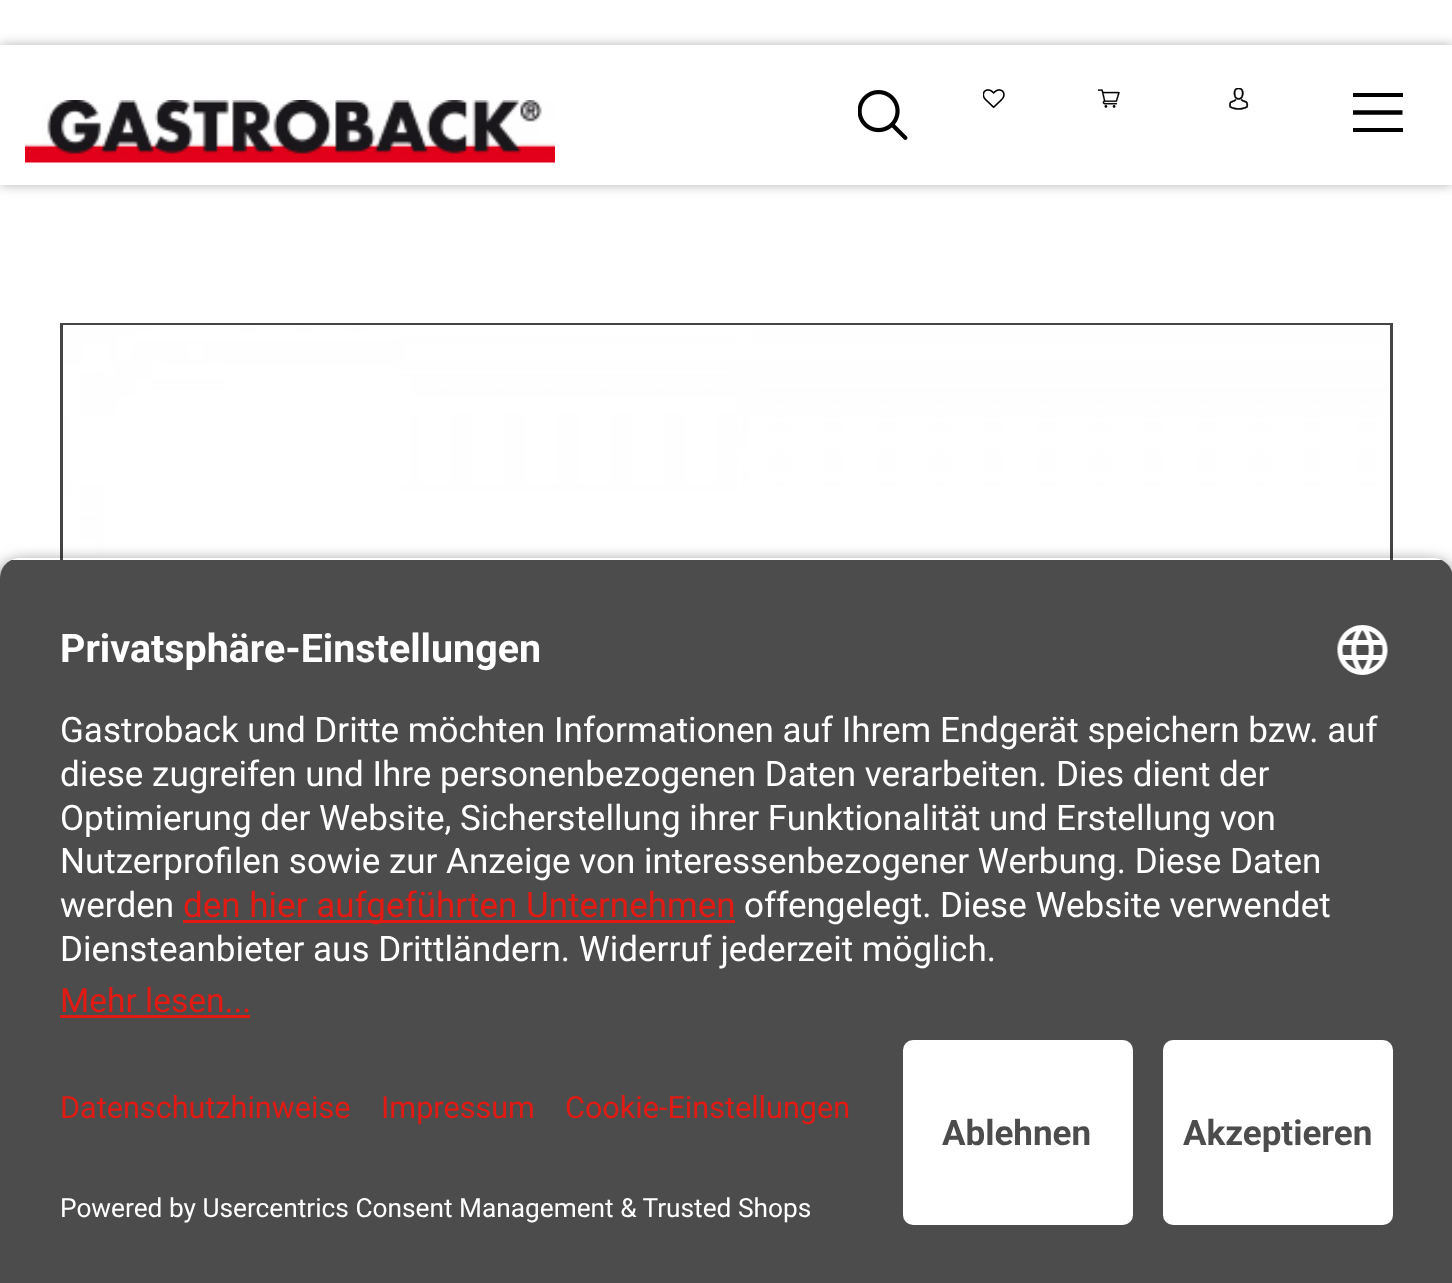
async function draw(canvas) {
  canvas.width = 1452
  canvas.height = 1283
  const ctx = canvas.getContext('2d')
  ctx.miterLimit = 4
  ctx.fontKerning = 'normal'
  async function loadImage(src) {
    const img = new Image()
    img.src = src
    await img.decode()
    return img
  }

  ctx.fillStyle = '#fff'
  ctx.fillRect(0, 0, 1452, 1283)
  ctx.save()
  ctx.beginPath()
  ctx.moveTo(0, 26)
  ctx.lineTo(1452, 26)
  ctx.lineTo(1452, 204)
  ctx.lineTo(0, 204)
  ctx.closePath()
  ctx.moveTo(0, 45)
  ctx.lineTo(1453, 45)
  ctx.lineTo(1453, 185)
  ctx.lineTo(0, 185)
  ctx.closePath()
  ctx.clip('evenodd')
  ctx.fillStyle = '#0000004d'
  ctx.filter = 'blur(6px)'
  ctx.beginPath()
  ctx.rect(0, 45, 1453, 140)
  ctx.fill()
  ctx.filter = 'none'
  ctx.restore()
  ctx.drawImage(await loadImage('image0.png'), 25, 100, 530, 63)
  ctx.drawImage(await loadImage('image1.png'), 858, 90, 50, 50)
  ctx.drawImage(await loadImage('image2.png'), 983, 89, 22, 19)
  ctx.drawImage(await loadImage('image3.png'), 1098, 89, 22, 19)
  ctx.drawImage(await loadImage('image4.png'), 1229, 88, 20, 22)
  ctx.fillStyle = '#000'
  ctx.fillRect(1353, 93, 50, 4)
  ctx.save()
  ctx.beginPath()
  ctx.rect(1353, 88, 50, 50)
  ctx.clip()
  ctx.beginPath()
  ctx.moveTo(1352.5, 112.5)
  ctx.lineTo(1402.5, 112.5)
  ctx.strokeStyle = '#000'
  ctx.lineWidth = 4.4
  ctx.stroke()
  ctx.restore()
  ctx.fillRect(1353, 128, 50, 4)
  ctx.strokeStyle = '#454545'
  ctx.lineWidth = 3
  ctx.strokeRect(61.5, 324.5, 1330, 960)
  ctx.drawImage(await loadImage('image5.png'), 63, 325, 1327, 235)
  ctx.save()
  ctx.beginPath()
  ctx.moveTo(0, 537)
  ctx.lineTo(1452, 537)
  ctx.lineTo(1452, 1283)
  ctx.lineTo(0, 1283)
  ctx.closePath()
  ctx.moveTo(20, 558)
  ctx.lineTo(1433, 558)
  ctx.bezierCurveTo(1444, 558, 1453, 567, 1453, 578)
  ctx.lineTo(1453, 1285)
  ctx.lineTo(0, 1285)
  ctx.lineTo(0, 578)
  ctx.bezierCurveTo(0, 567, 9, 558, 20, 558)
  ctx.closePath()
  ctx.clip('evenodd')
  ctx.fillStyle = '#000000cc'
  ctx.filter = 'blur(9px)'
  ctx.beginPath()
  ctx.roundRect(0, 565, 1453, 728, 20)
  ctx.fill()
  ctx.filter = 'none'
  ctx.restore()
  ctx.save()
  ctx.beginPath()
  ctx.moveTo(20, 558)
  ctx.lineTo(1433, 558)
  ctx.bezierCurveTo(1444, 558, 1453, 567, 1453, 578)
  ctx.lineTo(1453, 1020)
  ctx.lineTo(0, 1020)
  ctx.lineTo(0, 578)
  ctx.bezierCurveTo(0, 567, 9, 558, 20, 558)
  ctx.closePath()
  ctx.clip()
  ctx.fillStyle = '#4c4c4c'
  ctx.fillRect(0, 560, 1452, 460)
  ctx.restore()
  ctx.font = 'bold 39.4px Roboto'
  ctx.fillStyle = '#fff'
  ctx.fillText('Privatsphäre-Einstellungen', 60, 662)
  ctx.drawImage(await loadImage('image6.png'), 1337, 625, 51, 50)
  ctx.font = '35px Roboto'
  ctx.fillText('Gastroback und Dritte möchten Informationen auf Ihrem Endgerät speichern bzw. auf', 60, 742)
  ctx.fillText('diese zugreifen und Ihre personenbezogenen Daten verarbeiten. Dies dient der', 60, 786)
  ctx.fillText('Optimierung der Website, Sicherstellung ihrer Funktionalität und Erstellung von', 60, 830)
  ctx.fillText('Nutzerprofilen sowie zur Anzeige von interessenbezogener Werbung. Diese Daten', 60, 873)
  ctx.fillText('werden', 60, 917)
  ctx.fillStyle = '#e11b14'
  ctx.fillRect(183, 920, 552, 3)
  ctx.fillText('den hier aufgeführten Unternehmen', 183, 917)
  ctx.fillStyle = '#fff'
  ctx.fillText('offengelegt. Diese Website verwendet', 744, 917)
  ctx.fillText('Diensteanbieter aus Drittländern. Widerruf jederzeit möglich.', 60, 961)
  ctx.font = '33.5px Roboto'
  ctx.fillStyle = '#e11b14'
  ctx.fillText('Mehr lesen...', 60, 1012)
  ctx.fillRect(60, 1015, 190, 3)
  ctx.fillStyle = '#4c4c4c'
  ctx.fillRect(0, 1020, 1452, 263)
  ctx.font = '30.6px Roboto'
  ctx.fillStyle = '#e11b14'
  ctx.fillText('Datenschutzhinweise', 60, 1118)
  ctx.fillText('Impressum', 381, 1118)
  ctx.fillText('Cookie-Einstellungen', 565, 1118)
  ctx.font = '26.25px Roboto'
  ctx.fillStyle = '#fff'
  ctx.fillText('Powered by Usercentrics Consent Management & Trusted Shops', 60, 1217)
  ctx.beginPath()
  ctx.roundRect(903, 1040, 230, 185, 10)
  ctx.fill()
  ctx.font = 'bold 35px Roboto'
  ctx.fillStyle = '#4c4c4c'
  ctx.fillText('Ablehnen', 942, 1145)
  ctx.fillStyle = '#fff'
  ctx.beginPath()
  ctx.roundRect(1163, 1040, 230, 185, 10)
  ctx.fill()
  ctx.fillStyle = '#4c4c4c'
  ctx.fillText('Akzeptieren', 1183, 1145)
}

draw(document.querySelector('canvas'))
